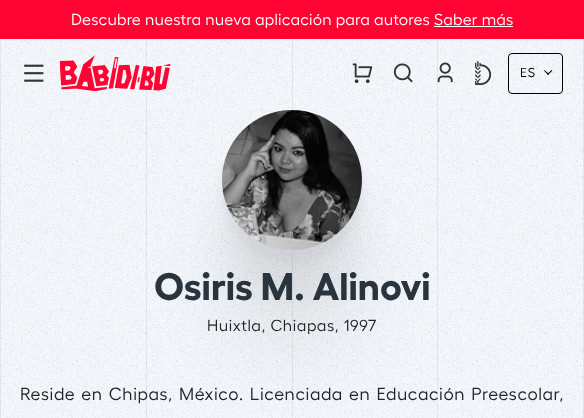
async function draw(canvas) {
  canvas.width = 584
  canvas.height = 418
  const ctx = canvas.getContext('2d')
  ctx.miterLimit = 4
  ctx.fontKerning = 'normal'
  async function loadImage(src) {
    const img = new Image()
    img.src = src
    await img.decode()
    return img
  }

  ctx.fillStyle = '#f4f7fc'
  ctx.fillRect(0, 0, 584, 418)
  ctx.fillStyle = '#ff0433'
  ctx.fillRect(0, 0, 584, 39)
  ctx.letterSpacing = '0.2px'
  ctx.font = '16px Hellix'
  ctx.fillStyle = '#fff'
  ctx.fillText('Descubre nuestra nueva aplicación para autores Saber más', 71, 25)
  ctx.fillRect(434, 26, 79, 1)
  ctx.fillStyle = '#e4e7ec'
  ctx.fillRect(146, 39, 1, 379)
  ctx.fillRect(0, 39, 1, 379)
  ctx.fillRect(292, 39, 1, 379)
  ctx.fillRect(437, 39, 1, 379)
  ctx.fillRect(583, 39, 1, 379)
  ctx.drawImage(await loadImage('image6.png'), 0, 39, 584, 379)
  ctx.fillStyle = '#00000012'
  ctx.filter = 'blur(40px)'
  ctx.beginPath()
  ctx.roundRect(222, 210, 140, 140, 70)
  ctx.fill()
  ctx.filter = 'none'
  ctx.drawImage(await loadImage('image0.png'), 60, 55, 111, 37)
  ctx.drawImage(await loadImage('image1.png'), 24, 64, 20, 18)
  ctx.drawImage(await loadImage('image2.png'), 352, 63, 21, 21)
  ctx.drawImage(await loadImage('image3.png'), 393, 63, 20, 20)
  ctx.drawImage(await loadImage('image4.png'), 437, 62, 16, 21)
  ctx.drawImage(await loadImage('image5.png'), 475, 61, 17, 24)
  ctx.beginPath()
  ctx.roundRect(508.5, 53.5, 54, 40, 3.5)
  ctx.strokeStyle = '#000'
  ctx.stroke()
  ctx.letterSpacing = '1px'
  ctx.font = '13px Hellix'
  ctx.fillStyle = '#000'
  ctx.fillText('ES', 520, 77)
  ctx.beginPath()
  ctx.moveTo(551.5, 70)
  ctx.lineTo(552.5, 70.5)
  ctx.lineTo(548, 75)
  ctx.lineTo(547.5, 74)
  ctx.closePath()
  ctx.fill()
  ctx.beginPath()
  ctx.moveTo(544.5, 70)
  ctx.lineTo(549, 74)
  ctx.lineTo(548, 75)
  ctx.lineTo(544, 70.5)
  ctx.closePath()
  ctx.fill()
  ctx.fillStyle = '#0000000d'
  ctx.filter = 'blur(16.5px)'
  ctx.beginPath()
  ctx.roundRect(222, 152, 140, 140, 70)
  ctx.fill()
  ctx.filter = 'none'
  ctx.fillStyle = '#0000000a'
  ctx.filter = 'blur(5px)'
  ctx.beginPath()
  ctx.roundRect(222, 123, 140, 140, 70)
  ctx.fill()
  ctx.filter = 'none'
  ctx.drawImage(await loadImage('image7.png'), 222, 110, 140, 140)
  ctx.letterSpacing = '0px'
  ctx.font = 'bold 38.5px Hellix'
  ctx.fillStyle = '#29343e'
  ctx.fillText('Osiris M. Alinovi', 154, 300)
  ctx.letterSpacing = '0.6px'
  ctx.font = '16px Hellix'
  ctx.fillStyle = '#212529'
  ctx.fillText('Huixtla, Chiapas, 1997', 207, 331)
  ctx.wordSpacing = '1.25px'
  ctx.font = '17.6px Hellix'
  ctx.fillText('Reside en Chipas, México. Licenciada en Educación Preescolar,', 20, 400)
}

draw(document.querySelector('canvas'))
